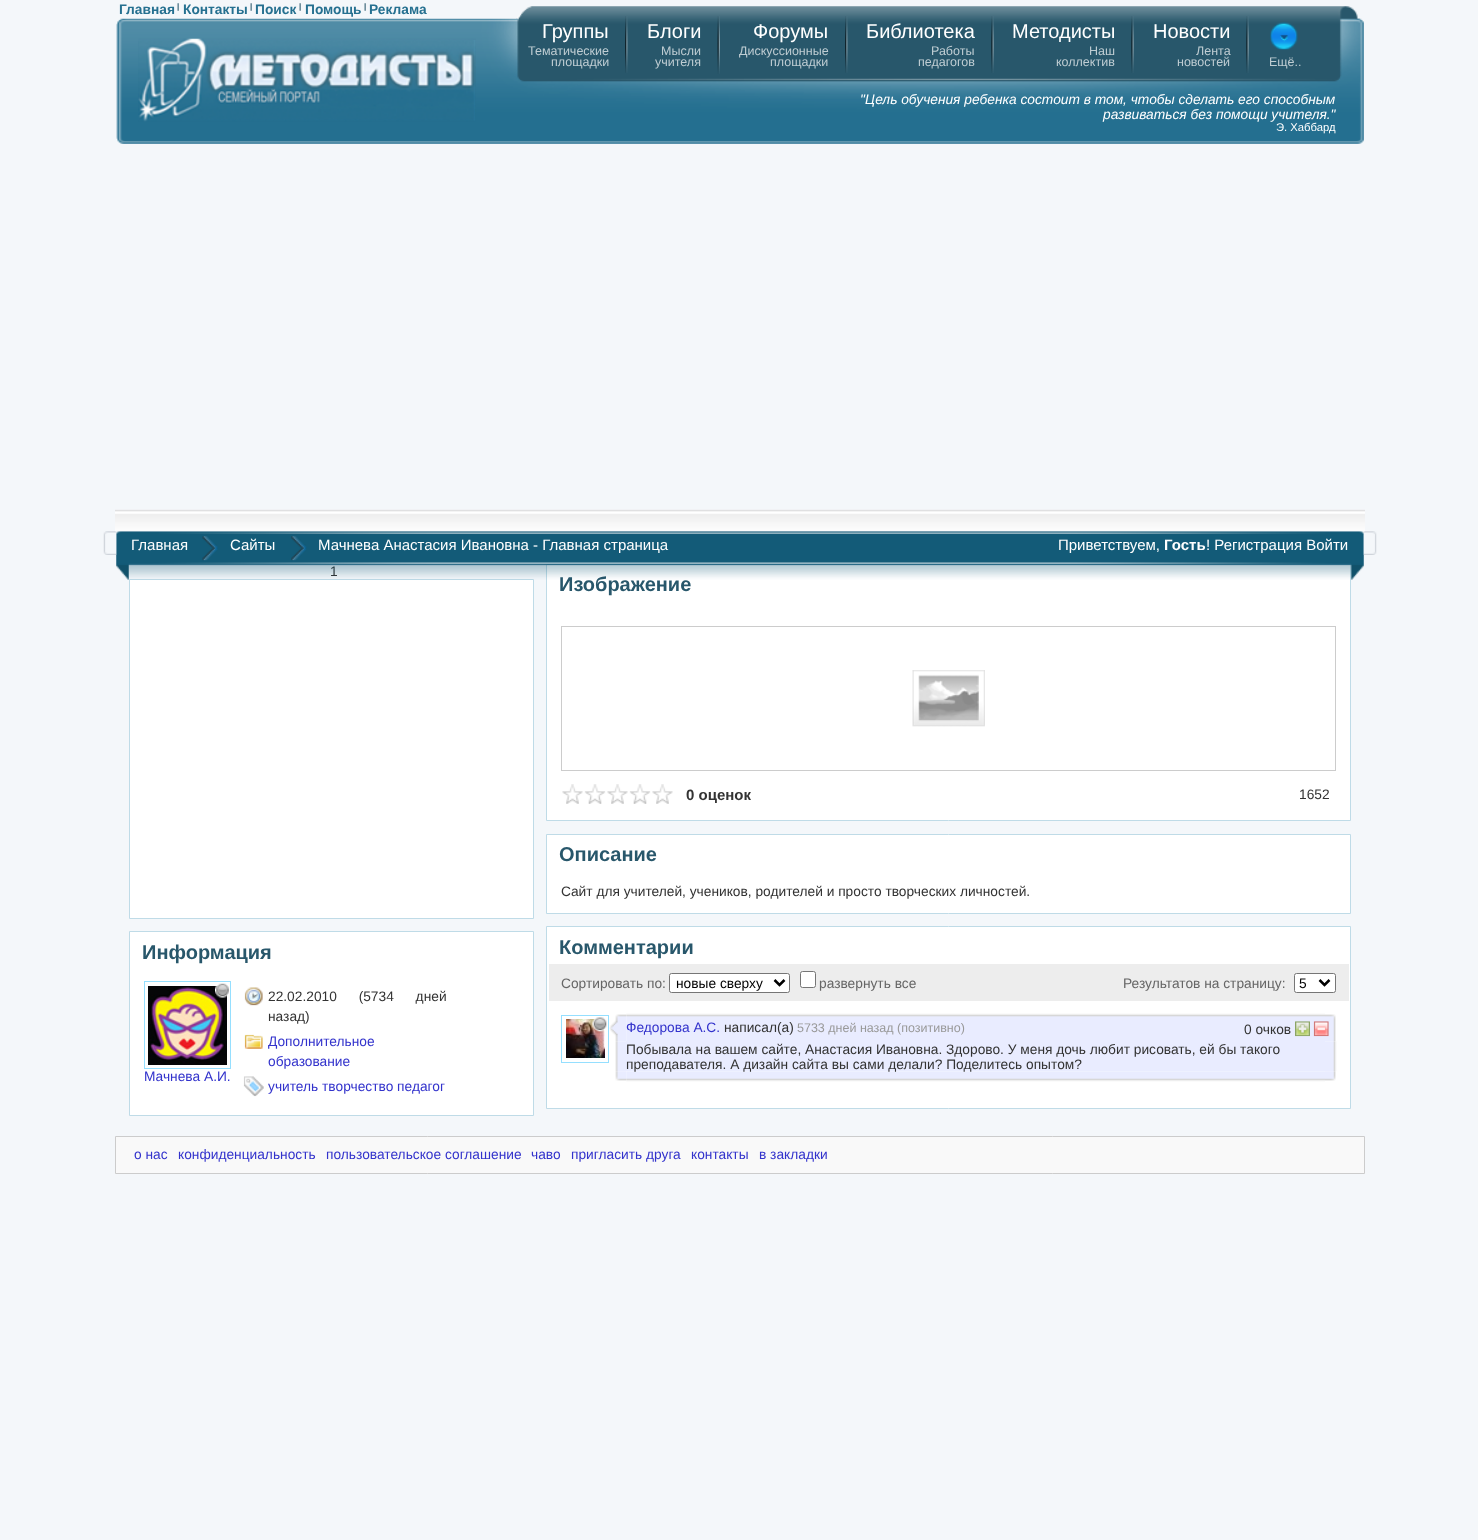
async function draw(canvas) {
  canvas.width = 1478
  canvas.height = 1540
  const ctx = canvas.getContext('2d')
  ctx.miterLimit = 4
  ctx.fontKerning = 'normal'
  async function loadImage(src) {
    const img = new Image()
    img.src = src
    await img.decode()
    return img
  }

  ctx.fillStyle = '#f4f7fa'
  ctx.fillRect(0, 0, 1478, 1540)
  ctx.drawImage(await loadImage('image0.png'), 116, 18, 1248, 126)
  ctx.font = 'bold 13.75px Liberation Sans'
  ctx.fillStyle = '#257090'
  ctx.fillText('Главная', 119, 14)
  ctx.font = 'bold 8px Liberation Sans'
  ctx.fillStyle = '#28576b'
  ctx.fillText('|', 177, 9)
  ctx.font = 'bold 13.75px Liberation Sans'
  ctx.fillStyle = '#257090'
  ctx.fillText('Контакты', 183, 14)
  ctx.font = 'bold 8px Liberation Sans'
  ctx.fillStyle = '#28576b'
  ctx.fillText('|', 250, 9)
  ctx.font = 'bold 13.75px Liberation Sans'
  ctx.fillStyle = '#257090'
  ctx.fillText('Поиск', 255, 14)
  ctx.font = 'bold 8px Liberation Sans'
  ctx.fillStyle = '#28576b'
  ctx.fillText('|', 299, 9)
  ctx.font = 'bold 13.75px Liberation Sans'
  ctx.fillStyle = '#257090'
  ctx.fillText('Помощь', 305, 14)
  ctx.font = 'bold 8px Liberation Sans'
  ctx.fillStyle = '#28576b'
  ctx.fillText('|', 364, 9)
  ctx.font = 'bold 13.75px Liberation Sans'
  ctx.fillStyle = '#257090'
  ctx.fillText('Реклама', 369, 14)
  ctx.drawImage(await loadImage('image1.png'), 138, 38, 338, 84)
  ctx.drawImage(await loadImage('image2.png'), 516, 6, 844, 76)
  ctx.drawImage(await loadImage('image3.png'), 625, 16, 3, 57)
  ctx.font = '20px Liberation Sans'
  ctx.fillStyle = '#fff'
  ctx.fillText('Группы', 542, 38)
  ctx.font = '12.5px Liberation Sans'
  ctx.fillStyle = '#bfcdd3'
  ctx.fillText('Тематические', 528, 55)
  ctx.fillText('площадки', 551, 66)
  ctx.drawImage(await loadImage('image4.png'), 717, 16, 3, 58)
  ctx.font = '20px Liberation Sans'
  ctx.fillStyle = '#fff'
  ctx.fillText('Блоги', 647, 38)
  ctx.font = '12.5px Liberation Sans'
  ctx.fillStyle = '#bfcdd3'
  ctx.fillText('Мысли', 661, 55)
  ctx.fillText('учителя', 655, 66)
  ctx.drawImage(await loadImage('image3.png'), 845, 16, 3, 57)
  ctx.font = '20px Liberation Sans'
  ctx.fillStyle = '#fff'
  ctx.fillText('Форумы', 753, 38)
  ctx.font = '12.5px Liberation Sans'
  ctx.fillStyle = '#bfcdd3'
  ctx.fillText('Дискуссионные', 739, 55)
  ctx.fillText('площадки', 770, 66)
  ctx.drawImage(await loadImage('image5.png'), 991, 16, 3, 57)
  ctx.font = '20px Liberation Sans'
  ctx.fillStyle = '#fff'
  ctx.fillText('Библиотека', 866, 38)
  ctx.font = '12.5px Liberation Sans'
  ctx.fillStyle = '#bfcdd3'
  ctx.fillText('Работы', 931, 55)
  ctx.fillText('педагогов', 918, 66)
  ctx.drawImage(await loadImage('image5.png'), 1131, 16, 3, 57)
  ctx.font = '20px Liberation Sans'
  ctx.fillStyle = '#fff'
  ctx.fillText('Методисты', 1012, 38)
  ctx.font = '12.5px Liberation Sans'
  ctx.fillStyle = '#bfcdd3'
  ctx.fillText('Наш', 1089, 55)
  ctx.fillText('коллектив', 1056, 66)
  ctx.drawImage(await loadImage('image5.png'), 1246, 16, 3, 57)
  ctx.font = '20px Liberation Sans'
  ctx.fillStyle = '#fff'
  ctx.fillText('Новости', 1153, 38)
  ctx.font = '12.5px Liberation Sans'
  ctx.fillStyle = '#bfcdd3'
  ctx.fillText('Лента', 1196, 55)
  ctx.fillText('новостей', 1177, 66)
  ctx.drawImage(await loadImage('image6.png'), 1270, 22, 28, 28)
  ctx.fillText('Ещё..', 1269, 66)
  ctx.font = 'italic 13.75px Liberation Sans'
  ctx.fillStyle = '#fff'
  ctx.fillText('"Цель обучения ребенка состоит в том, чтобы сделать его способным', 860, 104)
  ctx.fillText('развиваться без помощи учителя."', 1103, 119)
  ctx.font = '11.25px Liberation Sans'
  ctx.fillText('Э. Хаббард', 1276, 131)
  ctx.font = '13.75px Liberation Sans'
  ctx.fillStyle = '#333'
  ctx.fillText('1', 330, 576)
  ctx.fillStyle = '#fff'
  ctx.beginPath()
  ctx.rect(129.5, 579.5, 404, 339)
  ctx.fill()
  ctx.strokeStyle = '#bfdbe7'
  ctx.stroke()
  ctx.beginPath()
  ctx.rect(546.5, 564.5, 804, 256)
  ctx.fill()
  ctx.stroke()
  ctx.font = 'bold 20px Liberation Sans'
  ctx.fillStyle = '#28576b'
  ctx.fillText('Изображение', 559, 591)
  ctx.drawImage(await loadImage('image8.png'), 116, 531, 1248, 49)
  ctx.drawImage(await loadImage('image9.png'), 103, 531, 14, 24)
  ctx.drawImage(await loadImage('image12.png'), 1363, 531, 14, 24)
  ctx.drawImage(await loadImage('image7.png'), 115, 509, 1250, 23)
  ctx.font = '15px Liberation Sans'
  ctx.fillStyle = '#fff'
  ctx.fillText('Главная', 131, 550)
  ctx.drawImage(await loadImage('image10.png'), 202, 536, 16, 25)
  ctx.fillText('Сайты', 230, 550)
  ctx.drawImage(await loadImage('image11.png'), 291, 536, 16, 25)
  ctx.fillText('Мачнева Анастасия Ивановна - Главная страница', 318, 550)
  ctx.fillText('Приветствуем,', 1058, 550)
  ctx.font = 'bold 15px Liberation Sans'
  ctx.fillText('Гость', 1164, 550)
  ctx.font = '15px Liberation Sans'
  ctx.fillText('! Регистрация Войти', 1206, 550)
  ctx.beginPath()
  ctx.rect(129.5, 931.5, 404, 184)
  ctx.fill()
  ctx.stroke()
  ctx.font = 'bold 20px Liberation Sans'
  ctx.fillStyle = '#28576b'
  ctx.fillText('Информация', 142, 959)
  ctx.strokeStyle = '#95dfff'
  ctx.strokeRect(144.5, 981.5, 86, 87)
  ctx.drawImage(await loadImage('image14.png'), 148, 986, 79, 79)
  ctx.drawImage(await loadImage('image13.png'), 215, 983, 14, 15)
  ctx.font = '13.75px Liberation Sans'
  ctx.fillStyle = '#33c'
  ctx.fillText('Мачнева А.И.', 144, 1081)
  ctx.drawImage(await loadImage('image15.png'), 244, 987, 19, 19)
  ctx.wordSpacing = '18px'
  ctx.fillStyle = '#333'
  ctx.fillText('22.02.2010 (5734 дней', 268, 1001)
  ctx.wordSpacing = '0px'
  ctx.fillText('назад)', 268, 1021)
  ctx.drawImage(await loadImage('image16.png'), 244, 1034, 19, 15)
  ctx.fillStyle = '#33c'
  ctx.fillText('Дополнительное', 268, 1046)
  ctx.fillText('образование', 268, 1066)
  ctx.drawImage(await loadImage('image17.png'), 243, 1076, 21, 21)
  ctx.fillText('учитель творчество педагог', 268, 1091)
  ctx.strokeStyle = '#ccc'
  ctx.strokeRect(561.5, 626.5, 774, 144)
  ctx.drawImage(await loadImage('image18.png'), 912, 670, 73, 57)
  ctx.drawImage(await loadImage('image19.png'), 562, 784, 111, 20)
  ctx.font = 'bold 15px Liberation Sans'
  ctx.fillStyle = '#333'
  ctx.fillText('0 оценок', 686, 800)
  ctx.font = '13.75px Liberation Sans'
  ctx.fillText('1652', 1299, 799)
  ctx.fillStyle = '#fff'
  ctx.beginPath()
  ctx.rect(546.5, 834.5, 804, 79)
  ctx.fill()
  ctx.strokeStyle = '#bfdbe7'
  ctx.stroke()
  ctx.font = 'bold 20px Liberation Sans'
  ctx.fillStyle = '#28576b'
  ctx.fillText('Описание', 559, 861)
  ctx.font = '13.75px Liberation Sans'
  ctx.fillStyle = '#333'
  ctx.fillText('Cайт для учителей, учеников, родителей и просто творческих личностей.', 561, 896)
  ctx.fillStyle = '#fff'
  ctx.beginPath()
  ctx.rect(546.5, 926.5, 804, 182)
  ctx.fill()
  ctx.stroke()
  ctx.font = 'bold 20px Liberation Sans'
  ctx.fillStyle = '#28576b'
  ctx.fillText('Комментарии', 559, 954)
  ctx.fillStyle = '#ededed'
  ctx.fillRect(549, 964, 800, 37)
  ctx.font = '13.75px Liberation Sans'
  ctx.fillStyle = '#666'
  ctx.fillText('Сортировать по:', 561, 988)
  ctx.fillStyle = '#fff'
  ctx.beginPath()
  ctx.roundRect(669.5, 973.5, 120, 19, 2)
  ctx.fill()
  ctx.strokeStyle = '#767676'
  ctx.stroke()
  ctx.beginPath()
  ctx.moveTo(774.5, 980)
  ctx.lineTo(779.5, 985)
  ctx.lineTo(784.5, 980)
  ctx.strokeStyle = '#000'
  ctx.lineWidth = 2.5
  ctx.stroke()
  ctx.fillStyle = '#000'
  ctx.fillText('новые сверху', 676, 988)
  ctx.fillStyle = '#fff'
  ctx.beginPath()
  ctx.roundRect(800.5, 971.5, 15, 16, 2)
  ctx.fill()
  ctx.strokeStyle = '#767676'
  ctx.lineWidth = 1
  ctx.stroke()
  ctx.fillStyle = '#666'
  ctx.fillText('развернуть все', 819, 988)
  ctx.fillText('Результатов на страницу:', 1123, 988)
  ctx.fillStyle = '#fff'
  ctx.beginPath()
  ctx.roundRect(1294.5, 973.5, 41, 19, 2)
  ctx.fill()
  ctx.stroke()
  ctx.beginPath()
  ctx.moveTo(1319.5, 980)
  ctx.lineTo(1324.5, 985)
  ctx.lineTo(1329.5, 980)
  ctx.strokeStyle = '#000'
  ctx.lineWidth = 2.5
  ctx.stroke()
  ctx.fillStyle = '#000'
  ctx.fillText('5', 1299, 988)
  ctx.strokeStyle = '#95dfff'
  ctx.lineWidth = 1
  ctx.strokeRect(561.5, 1015.5, 47, 47)
  ctx.drawImage(await loadImage('image21.png'), 566, 1019, 39, 39)
  ctx.drawImage(await loadImage('image20.png'), 592, 1017, 15, 15)
  ctx.drawImage(await loadImage('image22.png'), 609, 1014, 18, 28)
  ctx.drawImage(await loadImage('image23.png'), 626, 1013, 699, 28)
  ctx.fillStyle = '#33c'
  ctx.fillText('Федорова А.С.', 626, 1032)
  ctx.fillStyle = '#333'
  ctx.fillText('написал(а)', 724, 1032)
  ctx.font = '12.5px Liberation Sans'
  ctx.fillStyle = '#999'
  ctx.fillText('5733 дней назад (позитивно)', 797, 1032)
  ctx.drawImage(await loadImage('image24.png'), 1325, 1014, 11, 28)
  ctx.drawImage(await loadImage('image25.png'), 615, 1041, 12, 31)
  ctx.fillStyle = '#e9ecff'
  ctx.fillRect(626, 1041, 699, 30)
  ctx.font = '13.75px Liberation Sans'
  ctx.fillStyle = '#333'
  ctx.fillText('Побывала на вашем сайте, Анастасия Ивановна. Здорово. У меня дочь любит рисовать, ей бы такого', 626, 1054)
  ctx.drawImage(await loadImage('image27.png'), 615, 1071, 12, 10)
  ctx.drawImage(await loadImage('image28.png'), 626, 1071, 699, 11)
  ctx.fillText('преподавателя. А дизайн сайта вы сами делали? Поделитесь опытом?', 626, 1069)
  ctx.drawImage(await loadImage('image26.png'), 1325, 1041, 12, 31)
  ctx.drawImage(await loadImage('image29.png'), 1325, 1071, 11, 10)
  ctx.fillText('0 очков', 1244, 1034)
  ctx.drawImage(await loadImage('image30.png'), 1295, 1021, 15, 16)
  ctx.drawImage(await loadImage('image31.png'), 1313, 1021, 16, 16)
  ctx.fillStyle = '#f9f9f9'
  ctx.beginPath()
  ctx.rect(115.5, 1136.5, 1249, 37)
  ctx.fill()
  ctx.strokeStyle = '#ccc'
  ctx.stroke()
  ctx.fillStyle = '#33c'
  ctx.fillText('о нас', 134, 1159)
  ctx.fillText('конфиденциальность', 178, 1159)
  ctx.fillText('пользовательское соглашение', 326, 1159)
  ctx.fillText('чаво', 531, 1159)
  ctx.fillText('пригласить друга', 571, 1159)
  ctx.fillText('контакты', 691, 1159)
  ctx.fillText('в закладки', 759, 1159)
}

draw(document.querySelector('canvas'))
